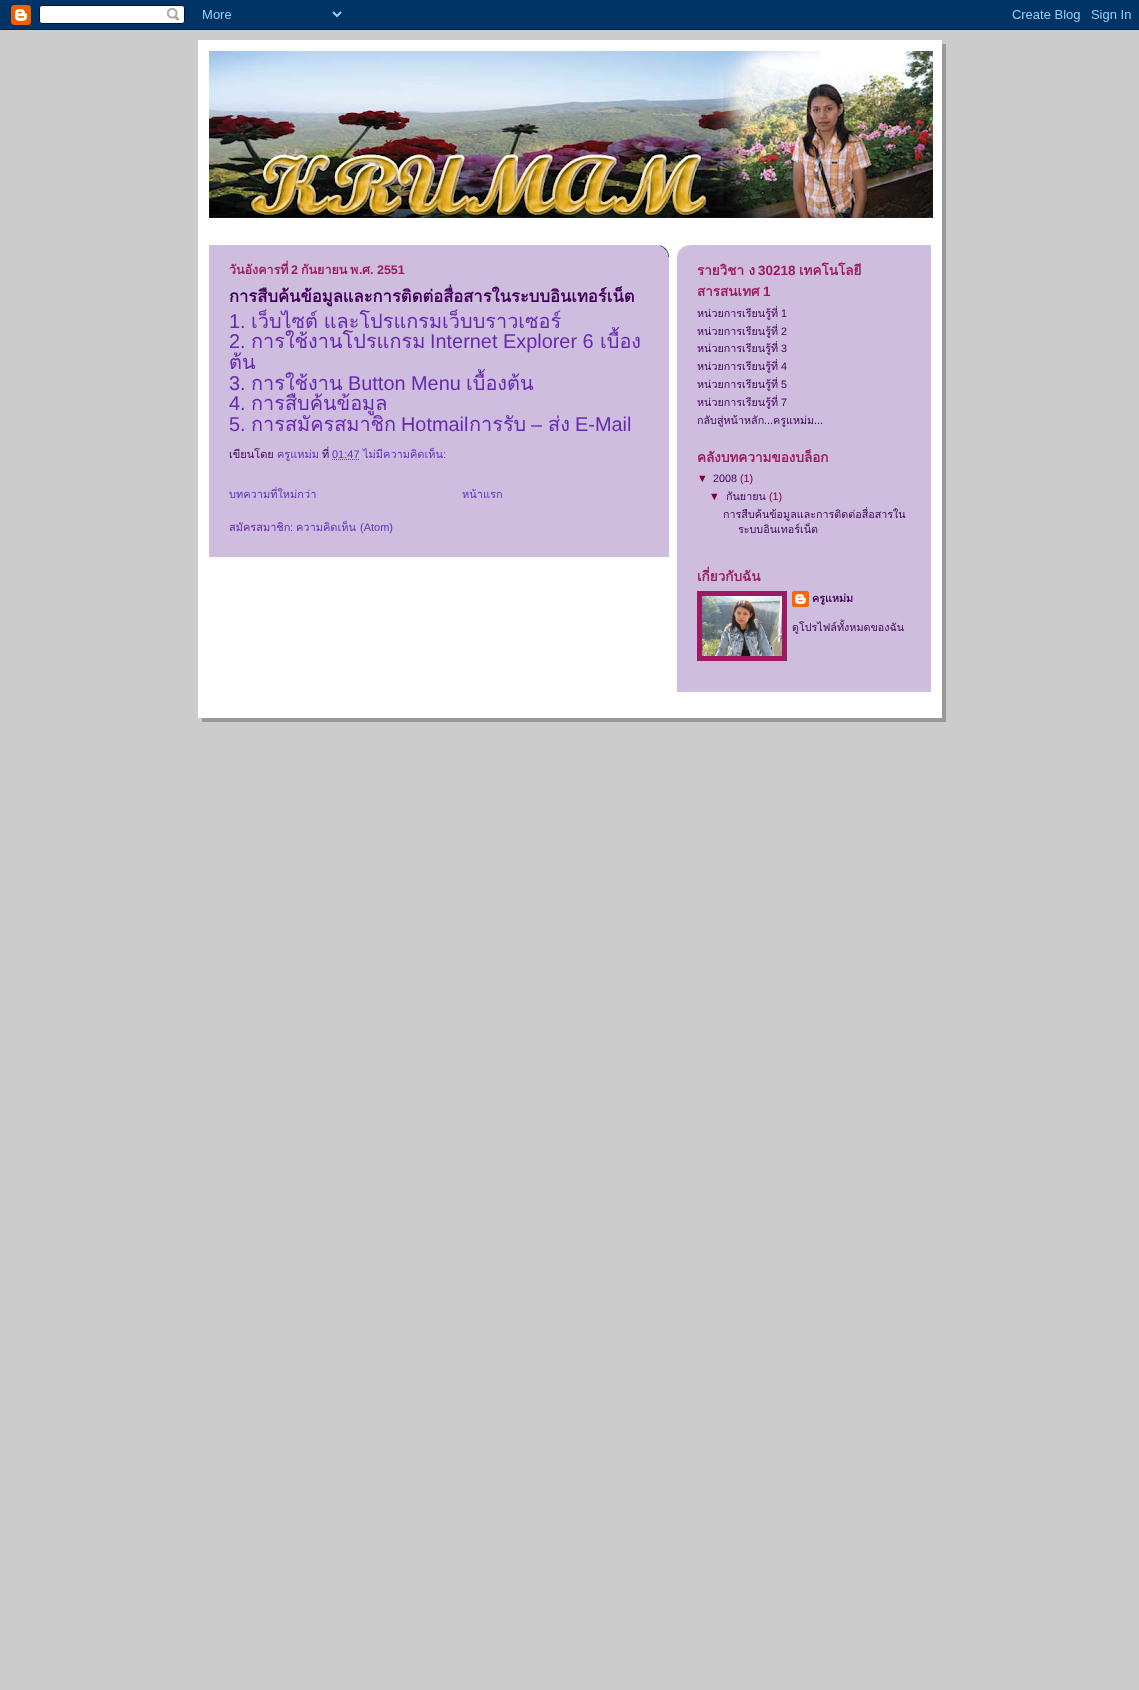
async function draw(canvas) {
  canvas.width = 1139
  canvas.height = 1690
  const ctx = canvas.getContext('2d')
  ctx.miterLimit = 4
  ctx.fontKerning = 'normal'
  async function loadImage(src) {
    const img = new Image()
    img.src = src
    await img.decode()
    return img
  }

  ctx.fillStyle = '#ccc'
  ctx.fillRect(0, 0, 1139, 1690)
  ctx.drawImage(await loadImage('image0.png'), 0, 0, 1139, 30)
  ctx.fillStyle = '#999'
  ctx.fillRect(202, 44, 744, 678)
  ctx.fillStyle = '#fff'
  ctx.fillRect(198, 40, 744, 678)
  ctx.drawImage(await loadImage('image1.png'), 209, 51, 724, 167)
  ctx.fillStyle = '#cebddf'
  ctx.fillRect(209, 245, 460, 312)
  ctx.drawImage(await loadImage('image2.png'), 660, 245, 9, 12)
  ctx.font = 'bold 12.5px Loma'
  ctx.fillStyle = '#9d1961'
  ctx.fillText('วันอังคารที่', 229, 274)
  ctx.font = 'bold 12.5px Liberation Sans'
  ctx.fillText('2', 291, 274)
  ctx.font = 'bold 12.5px Loma'
  ctx.fillText('กันยายน', 301, 274)
  ctx.fillText('พ', 350, 274)
  ctx.font = 'bold 12.5px Liberation Sans'
  ctx.fillText('.', 359, 274)
  ctx.font = 'bold 12.5px Loma'
  ctx.fillText('ศ', 362, 274)
  ctx.font = 'bold 12.5px Liberation Sans'
  ctx.fillText('. 2551', 370, 274)
  ctx.font = 'bold 16.6px Loma'
  ctx.fillStyle = '#400058'
  ctx.fillText('การสืบค้นข้อมูลและการติดต่อสื่อสารในระบบอินเทอร์เน็ต', 229, 302)
  ctx.font = '19.9px Liberation Sans'
  ctx.fillStyle = '#6728b2'
  ctx.fillText('1.', 229, 328)
  ctx.wordSpacing = '-1px'
  ctx.font = '19.9px Loma'
  ctx.fillText('เว็บไซต์ และโปรแกรมเว็บบราวเซอร์', 251, 328)
  ctx.wordSpacing = '0px'
  ctx.font = '19.9px Liberation Sans'
  ctx.fillText('2.', 229, 348)
  ctx.font = '19.9px Loma'
  ctx.fillText('การใช้งานโปรแกรม', 251, 348)
  ctx.font = '19.9px Liberation Sans'
  ctx.fillText('Internet Explorer 6', 430, 348)
  ctx.font = '19.9px Loma'
  ctx.fillText('เบื้อง', 600, 348)
  ctx.fillText('ต้น', 229, 369)
  ctx.font = '19.9px Liberation Sans'
  ctx.fillText('3.', 229, 390)
  ctx.font = '19.9px Loma'
  ctx.fillText('การใช้งาน', 251, 390)
  ctx.font = '19.9px Liberation Sans'
  ctx.fillText('Button Menu', 348, 390)
  ctx.font = '19.9px Loma'
  ctx.fillText('เบื้องต้น', 466, 390)
  ctx.font = '19.9px Liberation Sans'
  ctx.fillText('4.', 229, 410)
  ctx.font = '19.9px Loma'
  ctx.fillText('การสืบค้นข้อมูล', 251, 410)
  ctx.font = '19.9px Liberation Sans'
  ctx.fillText('5.', 229, 431)
  ctx.font = '19.9px Loma'
  ctx.fillText('การสมัครสมาชิก', 251, 431)
  ctx.font = '19.9px Liberation Sans'
  ctx.fillText('Hotmail', 401, 431)
  ctx.font = '19.9px Loma'
  ctx.fillText('การรับ', 469, 431)
  ctx.font = '19.9px Liberation Sans'
  ctx.fillText('–', 531, 431)
  ctx.font = '19.9px Loma'
  ctx.fillText('ส่ง', 548, 431)
  ctx.font = '19.9px Liberation Sans'
  ctx.fillText('E-Mail', 575, 431)
  ctx.font = '11px Loma'
  ctx.fillStyle = '#400058'
  ctx.fillText('เขียนโดย', 229, 458)
  ctx.fillStyle = '#6131bd'
  ctx.fillText('ครูแหม่ม', 277, 458)
  ctx.fillStyle = '#400058'
  ctx.fillText('ที่', 322, 458)
  ctx.font = '11px Liberation Sans'
  ctx.fillStyle = '#6131bd'
  ctx.fillText('01:47', 332, 458)
  ctx.beginPath()
  ctx.moveTo(332, 459.5)
  ctx.lineTo(360, 459.5)
  ctx.strokeStyle = '#6131bd'
  ctx.setLineDash([1, 1])
  ctx.stroke()
  ctx.font = '11px Loma'
  ctx.fillText('ไม่มีความคิดเห็น', 363, 458)
  ctx.font = '11px Liberation Sans'
  ctx.fillText(':', 443, 458)
  ctx.font = '11px Loma'
  ctx.fillText('บทความที่ใหม่กว่า', 229, 498)
  ctx.fillText('หน้าแรก', 462, 498)
  ctx.fillStyle = '#6728b2'
  ctx.fillText('สมัครสมาชิก', 229, 531)
  ctx.font = '11px Liberation Sans'
  ctx.fillText(':', 290, 531)
  ctx.font = '11px Loma'
  ctx.fillStyle = '#6131bd'
  ctx.fillText('ความคิดเห็น', 296, 531)
  ctx.font = '11px Liberation Sans'
  ctx.fillText('(Atom)', 360, 531)
  ctx.fillStyle = '#cebddf'
  ctx.fillRect(677, 245, 254, 447)
  ctx.drawImage(await loadImage('image3.png'), 677, 245, 13, 12)
  ctx.font = 'bold 13.5px Loma'
  ctx.fillStyle = '#9d1961'
  ctx.fillText('รายวิชา ง', 697, 275)
  ctx.font = 'bold 13.5px Liberation Sans'
  ctx.fillText('30218', 758, 275)
  ctx.font = 'bold 13.5px Loma'
  ctx.fillText('เทคโนโลยี', 799, 275)
  ctx.fillText('สารสนเทศ', 697, 296)
  ctx.font = 'bold 13.5px Liberation Sans'
  ctx.fillText('1', 763, 296)
  ctx.font = '10.75px Loma'
  ctx.fillStyle = '#400058'
  ctx.fillText('หน่วยการเรียนรู้ที่', 697, 317)
  ctx.font = '10.75px Liberation Sans'
  ctx.fillText('1', 781, 317)
  ctx.font = '10.75px Loma'
  ctx.fillText('หน่วยการเรียนรู้ที่', 697, 335)
  ctx.font = '10.75px Liberation Sans'
  ctx.fillText('2', 781, 335)
  ctx.font = '10.75px Loma'
  ctx.fillText('หน่วยการเรียนรู้ที่', 697, 352)
  ctx.font = '10.75px Liberation Sans'
  ctx.fillText('3', 781, 352)
  ctx.font = '10.75px Loma'
  ctx.fillText('หน่วยการเรียนรู้ที่', 697, 370)
  ctx.font = '10.75px Liberation Sans'
  ctx.fillText('4', 781, 370)
  ctx.font = '10.75px Loma'
  ctx.fillText('หน่วยการเรียนรู้ที่', 697, 388)
  ctx.font = '10.75px Liberation Sans'
  ctx.fillText('5', 781, 388)
  ctx.font = '10.75px Loma'
  ctx.fillText('หน่วยการเรียนรู้ที่', 697, 406)
  ctx.font = '10.75px Liberation Sans'
  ctx.fillText('7', 781, 406)
  ctx.font = '10.75px Loma'
  ctx.fillText('กลับสู่หน้าหลัก', 697, 424)
  ctx.font = '10.75px Liberation Sans'
  ctx.fillText('...', 764, 424)
  ctx.font = '10.75px Loma'
  ctx.fillText('ครูแหม่ม', 773, 424)
  ctx.font = '10.75px Liberation Sans'
  ctx.fillText('...', 814, 424)
  ctx.font = 'bold 13.5px Loma'
  ctx.fillStyle = '#9d1961'
  ctx.fillText('คลังบทความของบล็อก', 697, 462)
  ctx.font = '10.75px Liberation Sans'
  ctx.fillStyle = '#800040'
  ctx.fillText('▼', 697, 482)
  ctx.fillStyle = '#400058'
  ctx.fillText('2008', 713, 482)
  ctx.fillStyle = '#800040'
  ctx.fillText('(1)', 740, 482)
  ctx.fillText('▼', 709, 500)
  ctx.font = '10.75px Loma'
  ctx.fillStyle = '#400058'
  ctx.fillText('กันยายน', 726, 500)
  ctx.font = '10.75px Liberation Sans'
  ctx.fillStyle = '#800040'
  ctx.fillText('(1)', 769, 500)
  ctx.font = '10.75px Loma'
  ctx.fillStyle = '#400058'
  ctx.fillText('การสืบค้นข้อมูลและการติดต่อสื่อสารใน', 723, 518)
  ctx.fillText('ระบบอินเทอร์เน็ต', 738, 533)
  ctx.font = 'bold 13.5px Loma'
  ctx.fillStyle = '#9d1961'
  ctx.fillText('เกี่ยวกับฉัน', 697, 581)
  ctx.strokeStyle = '#9d1961'
  ctx.lineWidth = 5
  ctx.setLineDash([])
  ctx.strokeRect(699.5, 593.5, 85, 65)
  ctx.drawImage(await loadImage('image4.png'), 702, 596, 80, 60)
  ctx.drawImage(await loadImage('image5.png'), 792, 591, 17, 16)
  ctx.font = 'bold 10.75px Loma'
  ctx.fillStyle = '#400058'
  ctx.fillText('ครูแหม่ม', 812, 602)
  ctx.font = '10.75px Loma'
  ctx.fillText('ดูโปรไฟล์ทั้งหมดของฉัน', 792, 631)
}

draw(document.querySelector('canvas'))
